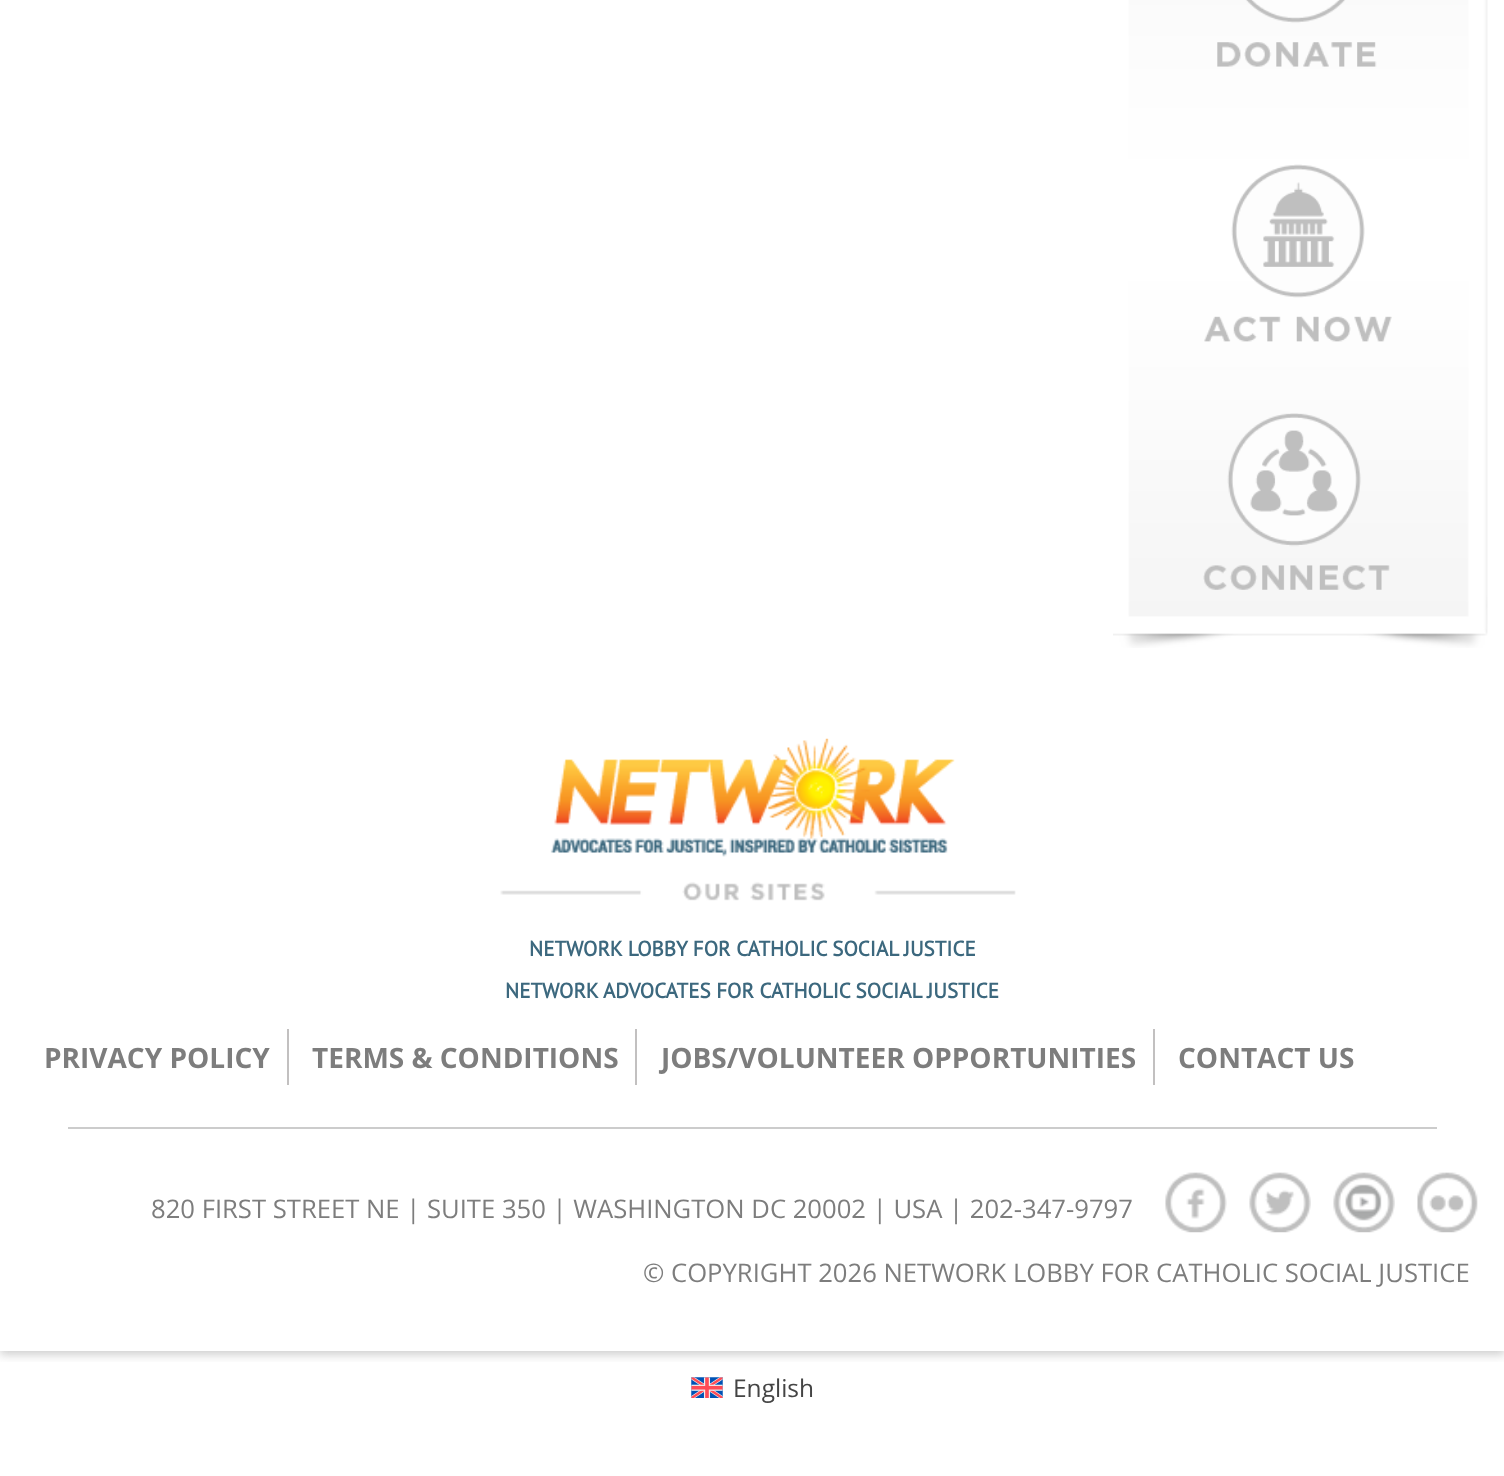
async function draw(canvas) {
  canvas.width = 1504
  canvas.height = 1476
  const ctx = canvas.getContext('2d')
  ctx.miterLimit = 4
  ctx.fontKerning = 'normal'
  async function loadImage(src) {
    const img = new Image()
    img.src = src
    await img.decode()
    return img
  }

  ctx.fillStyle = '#fff'
  ctx.fillRect(0, 0, 1504, 1476)
  ctx.save()
  ctx.beginPath()
  ctx.rect(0, 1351, 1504, 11)
  ctx.clip()
  ctx.fillStyle = '#6464644d'
  ctx.filter = 'blur(5px)'
  ctx.beginPath()
  ctx.rect(0, -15, 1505, 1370)
  ctx.fill()
  ctx.filter = 'none'
  ctx.restore()
  ctx.drawImage(await loadImage('image0.png'), 1113, 0, 375, 648)
  ctx.drawImage(await loadImage('image1.png'), 1217, 0, 160, 67)
  ctx.drawImage(await loadImage('image2.png'), 1204, 164, 188, 178)
  ctx.drawImage(await loadImage('image3.png'), 1203, 413, 187, 177)
  ctx.drawImage(await loadImage('image4.png'), 500, 738, 516, 163)
  ctx.font = 'bold 21px PT Sans'
  ctx.fillStyle = '#3c687e'
  ctx.fillText('NETWORK LOBBY FOR CATHOLIC SOCIAL JUSTICE', 529, 956)
  ctx.fillText('NETWORK ADVOCATES FOR CATHOLIC SOCIAL JUSTICE', 505, 998)
  ctx.fillStyle = '#c2c0c0'
  ctx.fillRect(287, 1029, 2, 56)
  ctx.font = 'bold 28px Open Sans'
  ctx.fillStyle = '#7d7d7d'
  ctx.fillText('PRIVACY POLICY', 44, 1068)
  ctx.fillStyle = '#c2c0c0'
  ctx.fillRect(635, 1029, 2, 56)
  ctx.fillStyle = '#7d7d7d'
  ctx.fillText('TERMS & CONDITIONS', 312, 1068)
  ctx.fillStyle = '#c2c0c0'
  ctx.fillRect(1153, 1029, 2, 56)
  ctx.fillStyle = '#7d7d7d'
  ctx.fillText('JOBS/VOLUNTEER OPPORTUNITIES', 661, 1068)
  ctx.fillText('CONTACT US', 1178, 1068)
  ctx.fillStyle = '#ccc'
  ctx.fillRect(68, 1127, 1369, 2)
  ctx.font = '25.65px Open Sans'
  ctx.fillStyle = '#7d7d7d'
  ctx.fillText('820 FIRST STREET NE | SUITE 350 | WASHINGTON DC 20002 | USA | 202-347-9797', 151, 1218)
  ctx.drawImage(await loadImage('image5.png'), 1165, 1172, 62, 61)
  ctx.drawImage(await loadImage('image6.png'), 1249, 1172, 62, 61)
  ctx.drawImage(await loadImage('image7.png'), 1333, 1172, 62, 61)
  ctx.drawImage(await loadImage('image8.png'), 1417, 1172, 61, 61)
  ctx.fillText('© COPYRIGHT 2026 NETWORK LOBBY FOR CATHOLIC SOCIAL JUSTICE', 643, 1282)
  ctx.drawImage(await loadImage('image9.png'), 691, 1377, 32, 21)
  ctx.font = '24.5px Open Sans'
  ctx.fillStyle = '#444'
  ctx.fillText('English', 733, 1397)
}

draw(document.querySelector('canvas'))
